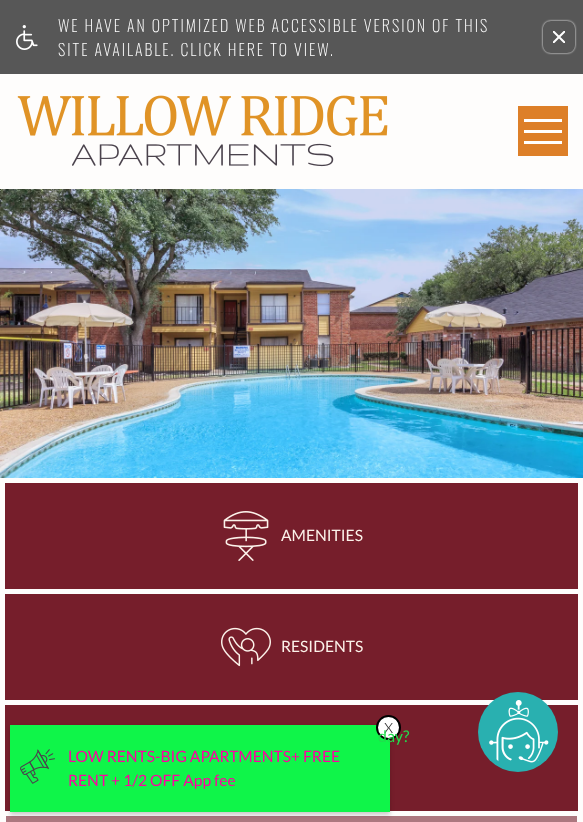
async function draw(canvas) {
  canvas.width = 583
  canvas.height = 822
  const ctx = canvas.getContext('2d')
  ctx.miterLimit = 4
  ctx.fontKerning = 'normal'
  async function loadImage(src) {
    const img = new Image()
    img.src = src
    await img.decode()
    return img
  }

  ctx.fillStyle = '#fefdfc'
  ctx.fillRect(0, 0, 583, 822)
  ctx.fillStyle = '#575757'
  ctx.fillRect(0, 0, 583, 74)
  ctx.drawImage(await loadImage('image0.png'), 16, 25, 22, 25)
  ctx.letterSpacing = '2px'
  ctx.font = '200 16px Oswald'
  ctx.fillStyle = '#fff'
  ctx.fillText('WE HAVE AN OPTIMIZED WEB ACCESSIBLE VERSION OF THIS', 58, 32)
  ctx.fillText('SITE AVAILABLE. CLICK HERE TO VIEW.', 58, 56)
  ctx.save()
  ctx.beginPath()
  ctx.moveTo(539, 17)
  ctx.lineTo(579, 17)
  ctx.lineTo(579, 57)
  ctx.lineTo(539, 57)
  ctx.closePath()
  ctx.moveTo(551, 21)
  ctx.lineTo(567, 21)
  ctx.bezierCurveTo(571.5, 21, 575, 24.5, 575, 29)
  ctx.lineTo(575, 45)
  ctx.bezierCurveTo(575, 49.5, 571.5, 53, 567, 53)
  ctx.lineTo(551, 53)
  ctx.bezierCurveTo(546.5, 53, 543, 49.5, 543, 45)
  ctx.lineTo(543, 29)
  ctx.bezierCurveTo(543, 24.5, 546.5, 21, 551, 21)
  ctx.closePath()
  ctx.clip('evenodd')
  ctx.filter = 'blur(1px)'
  ctx.beginPath()
  ctx.roundRect(543, 21, 32, 32, 8)
  ctx.fill()
  ctx.filter = 'none'
  ctx.restore()
  ctx.save()
  ctx.beginPath()
  ctx.rect(553, 31, 12, 12)
  ctx.clip()
  ctx.beginPath()
  ctx.moveTo(553, 43)
  ctx.lineTo(565, 31)
  ctx.moveTo(553, 31)
  ctx.lineTo(565, 43)
  ctx.strokeStyle = '#fff'
  ctx.lineWidth = 2
  ctx.stroke()
  ctx.restore()
  ctx.drawImage(await loadImage('image1.png'), 17, 95, 371, 72)
  ctx.fillStyle = '#dd7f28'
  ctx.fillRect(518, 106, 50, 50)
  ctx.fillStyle = '#fff'
  ctx.fillRect(524, 119, 38, 3)
  ctx.fillRect(524, 130, 38, 3)
  ctx.fillRect(524, 141, 38, 3)
  ctx.drawImage(await loadImage('image2.png'), 0, 189, 583, 289)
  ctx.fillStyle = '#761e2b'
  ctx.fillRect(5, 483, 573, 106)
  ctx.drawImage(await loadImage('image3.png'), 223, 511, 46, 50)
  ctx.letterSpacing = '0px'
  ctx.font = '15.6px Lato'
  ctx.fillStyle = '#fcf2ea'
  ctx.fillText('AMENITIES', 281, 541)
  ctx.fillStyle = '#761e2b'
  ctx.fillRect(5, 594, 573, 106)
  ctx.drawImage(await loadImage('image4.png'), 221, 627, 50, 40)
  ctx.fillStyle = '#fcf2ea'
  ctx.fillText('RESIDENTS', 281, 652)
  ctx.fillStyle = '#761e2b'
  ctx.fillRect(5, 705, 573, 106)
  ctx.fillStyle = '#ac777f'
  ctx.fillRect(6, 816, 571, 6)
  ctx.fillStyle = '#00000033'
  ctx.filter = 'blur(2px)'
  ctx.beginPath()
  ctx.rect(10, 728, 380, 87)
  ctx.fill()
  ctx.filter = 'none'
  ctx.fillStyle = '#0ff549'
  ctx.fillRect(10, 725, 380, 87)
  ctx.fillStyle = '#fff'
  ctx.beginPath()
  ctx.arc(388.5, 727.5, 11.5, 0, 2 * Math.PI)
  ctx.fill()
  ctx.strokeStyle = '#000'
  ctx.lineWidth = 2
  ctx.stroke()
  ctx.font = '300 20px Lato'
  ctx.fillStyle = '#333'
  ctx.fillText('x', 384, 733)
  ctx.drawImage(await loadImage('image5.png'), 20, 749, 35, 35)
  ctx.font = '15.6px Lato'
  ctx.fillStyle = '#ff00a2'
  ctx.fillText('LOW RENTS-BIG APARTMENTS+ FREE', 68, 762)
  ctx.fillText('RENT + 1/2 OFF App fee', 68, 786)
  ctx.font = '16px Lato'
  ctx.fillStyle = '#22dd4d'
  ctx.fillText('day?', 378, 742)
  ctx.fillStyle = '#29b0b0'
  ctx.beginPath()
  ctx.arc(518, 732, 40, 0, 2 * Math.PI)
  ctx.fill()
  ctx.drawImage(await loadImage('image6.png'), 489, 700, 60, 63)
}

draw(document.querySelector('canvas'))
